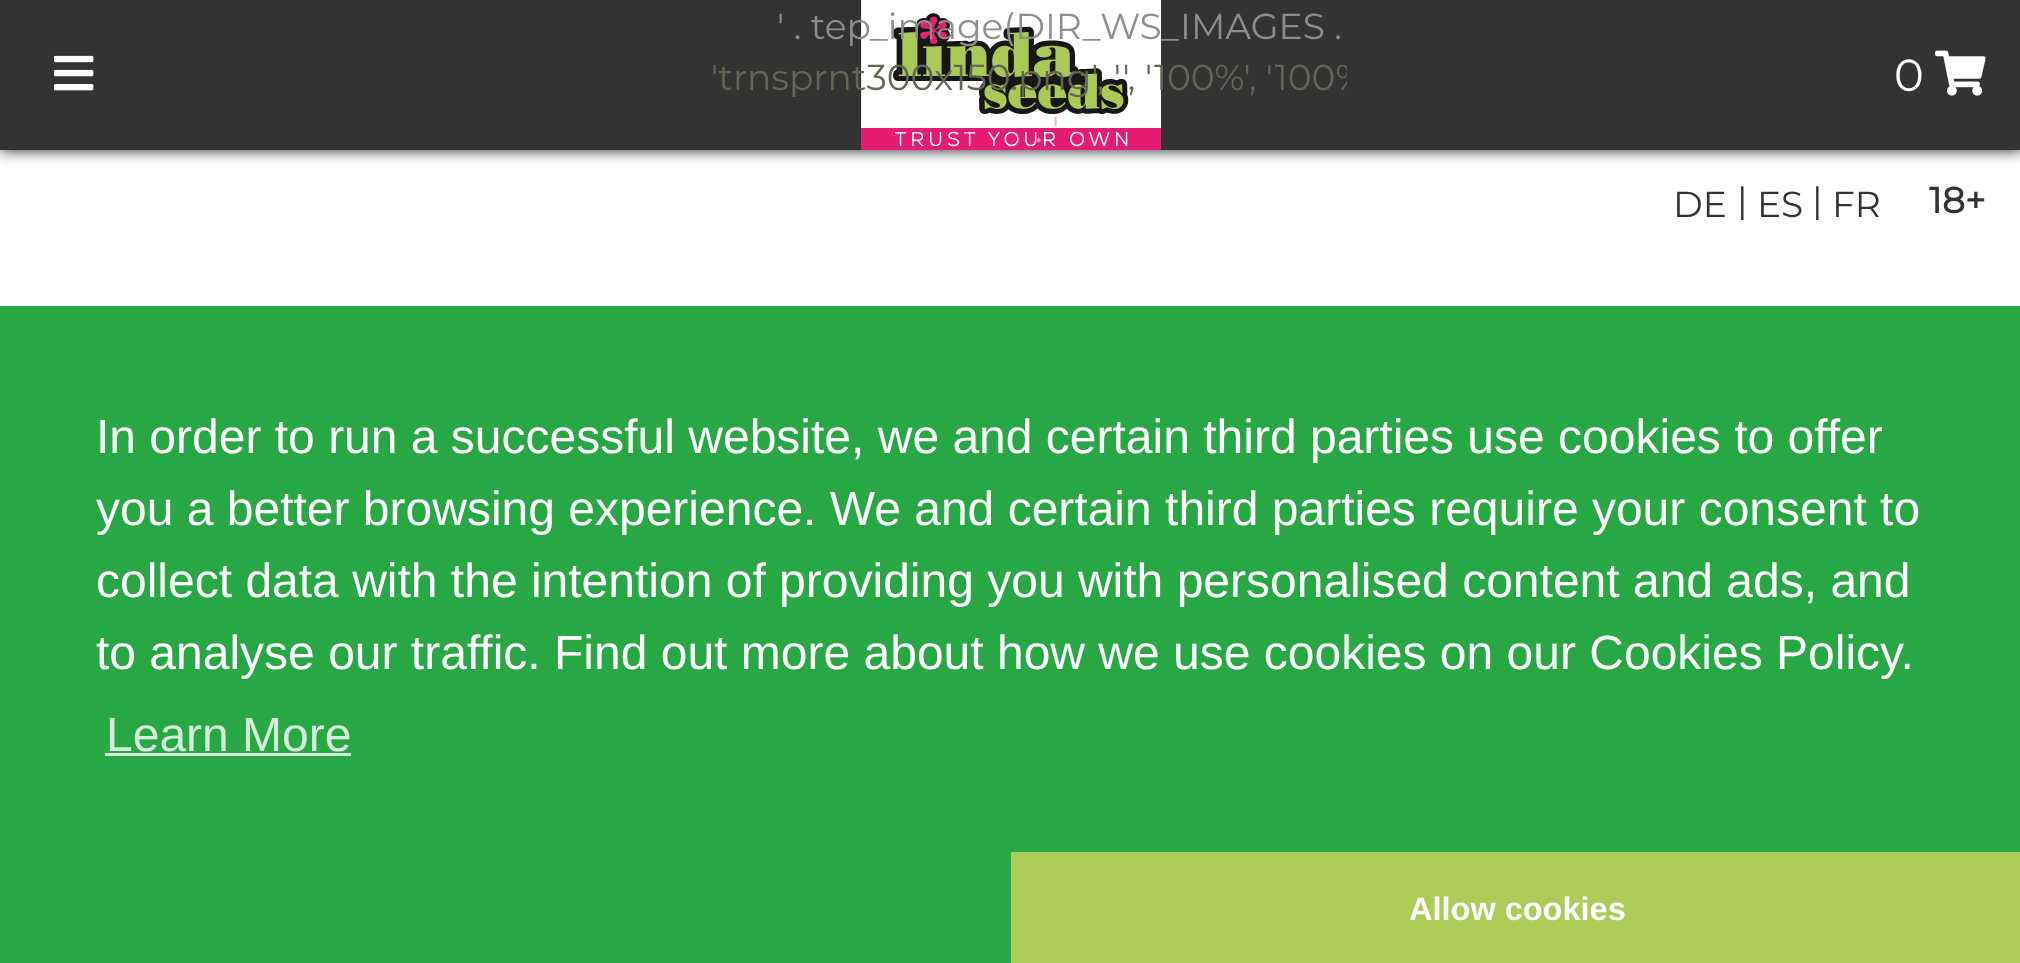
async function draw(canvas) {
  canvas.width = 2020
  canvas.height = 963
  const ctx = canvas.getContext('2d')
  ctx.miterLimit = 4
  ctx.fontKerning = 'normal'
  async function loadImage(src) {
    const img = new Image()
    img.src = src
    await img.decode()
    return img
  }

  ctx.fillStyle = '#fff'
  ctx.fillRect(0, 0, 2020, 963)
  ctx.fillStyle = '#1b1d20'
  ctx.filter = 'blur(7.5px)'
  ctx.beginPath()
  ctx.rect(0, 0, 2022, 150)
  ctx.fill()
  ctx.filter = 'none'
  ctx.fillStyle = '#333'
  ctx.fillRect(0, 0, 2020, 150)
  ctx.drawImage(await loadImage('image0.png'), 54, 55, 40, 36)
  ctx.drawImage(await loadImage('image1.png'), 861, 0, 300, 150)
  ctx.font = '36px Montserrat'
  ctx.fillStyle = '#908e8d'
  ctx.fillText('\' . tep_image(DIR_WS_IMAGES .', 777, 39)
  ctx.save()
  ctx.beginPath()
  ctx.rect(675, 0, 672, 150)
  ctx.clip()
  ctx.fillStyle = '#616655'
  ctx.fillText('\'trnsprnt300x150.png\', \'\', \'100%\', \'100%', 711, 90)
  ctx.restore()
  ctx.fillStyle = '#f6b2cf'
  ctx.fillText('. \'', 1035, 142)
  ctx.font = '45px Montserrat'
  ctx.fillStyle = '#fff'
  ctx.fillText('0', 1894, 91)
  ctx.drawImage(await loadImage('image2.png'), 1935, 50, 51, 46)
  ctx.font = '36px Montserrat'
  ctx.fillStyle = '#333'
  ctx.fillText('DE', 1673, 217)
  ctx.fillText('|', 1737, 213)
  ctx.fillText('ES', 1757, 217)
  ctx.fillText('|', 1812, 213)
  ctx.fillText('FR', 1832, 217)
  ctx.font = 'bold 36px Montserrat'
  ctx.fillText('18+', 1929, 213)
  ctx.fillStyle = '#28a745'
  ctx.fillRect(0, 306, 2020, 657)
  ctx.font = '48px Liberation Sans'
  ctx.fillStyle = '#fff'
  ctx.fillText('In order to run a successful website, we and certain third parties use cookies to offer', 96, 453)
  ctx.fillText('you a better browsing experience. We and certain third parties require your consent to', 96, 525)
  ctx.fillText('collect data with the intention of providing you with personalised content and ads, and', 96, 597)
  ctx.fillText('to analyse our traffic. Find out more about how we use cookies on our Cookies Policy.', 96, 669)
  ctx.fillStyle = '#d4edda'
  ctx.fillText('Learn More', 106, 751)
  ctx.fillRect(105, 753, 246, 3)
  ctx.fillStyle = '#abcc57'
  ctx.fillRect(1011, 852, 1009, 111)
  ctx.font = 'bold 32.5px Liberation Sans'
  ctx.fillStyle = '#fff'
  ctx.fillText('Allow cookies', 1409, 920)
}

draw(document.querySelector('canvas'))
